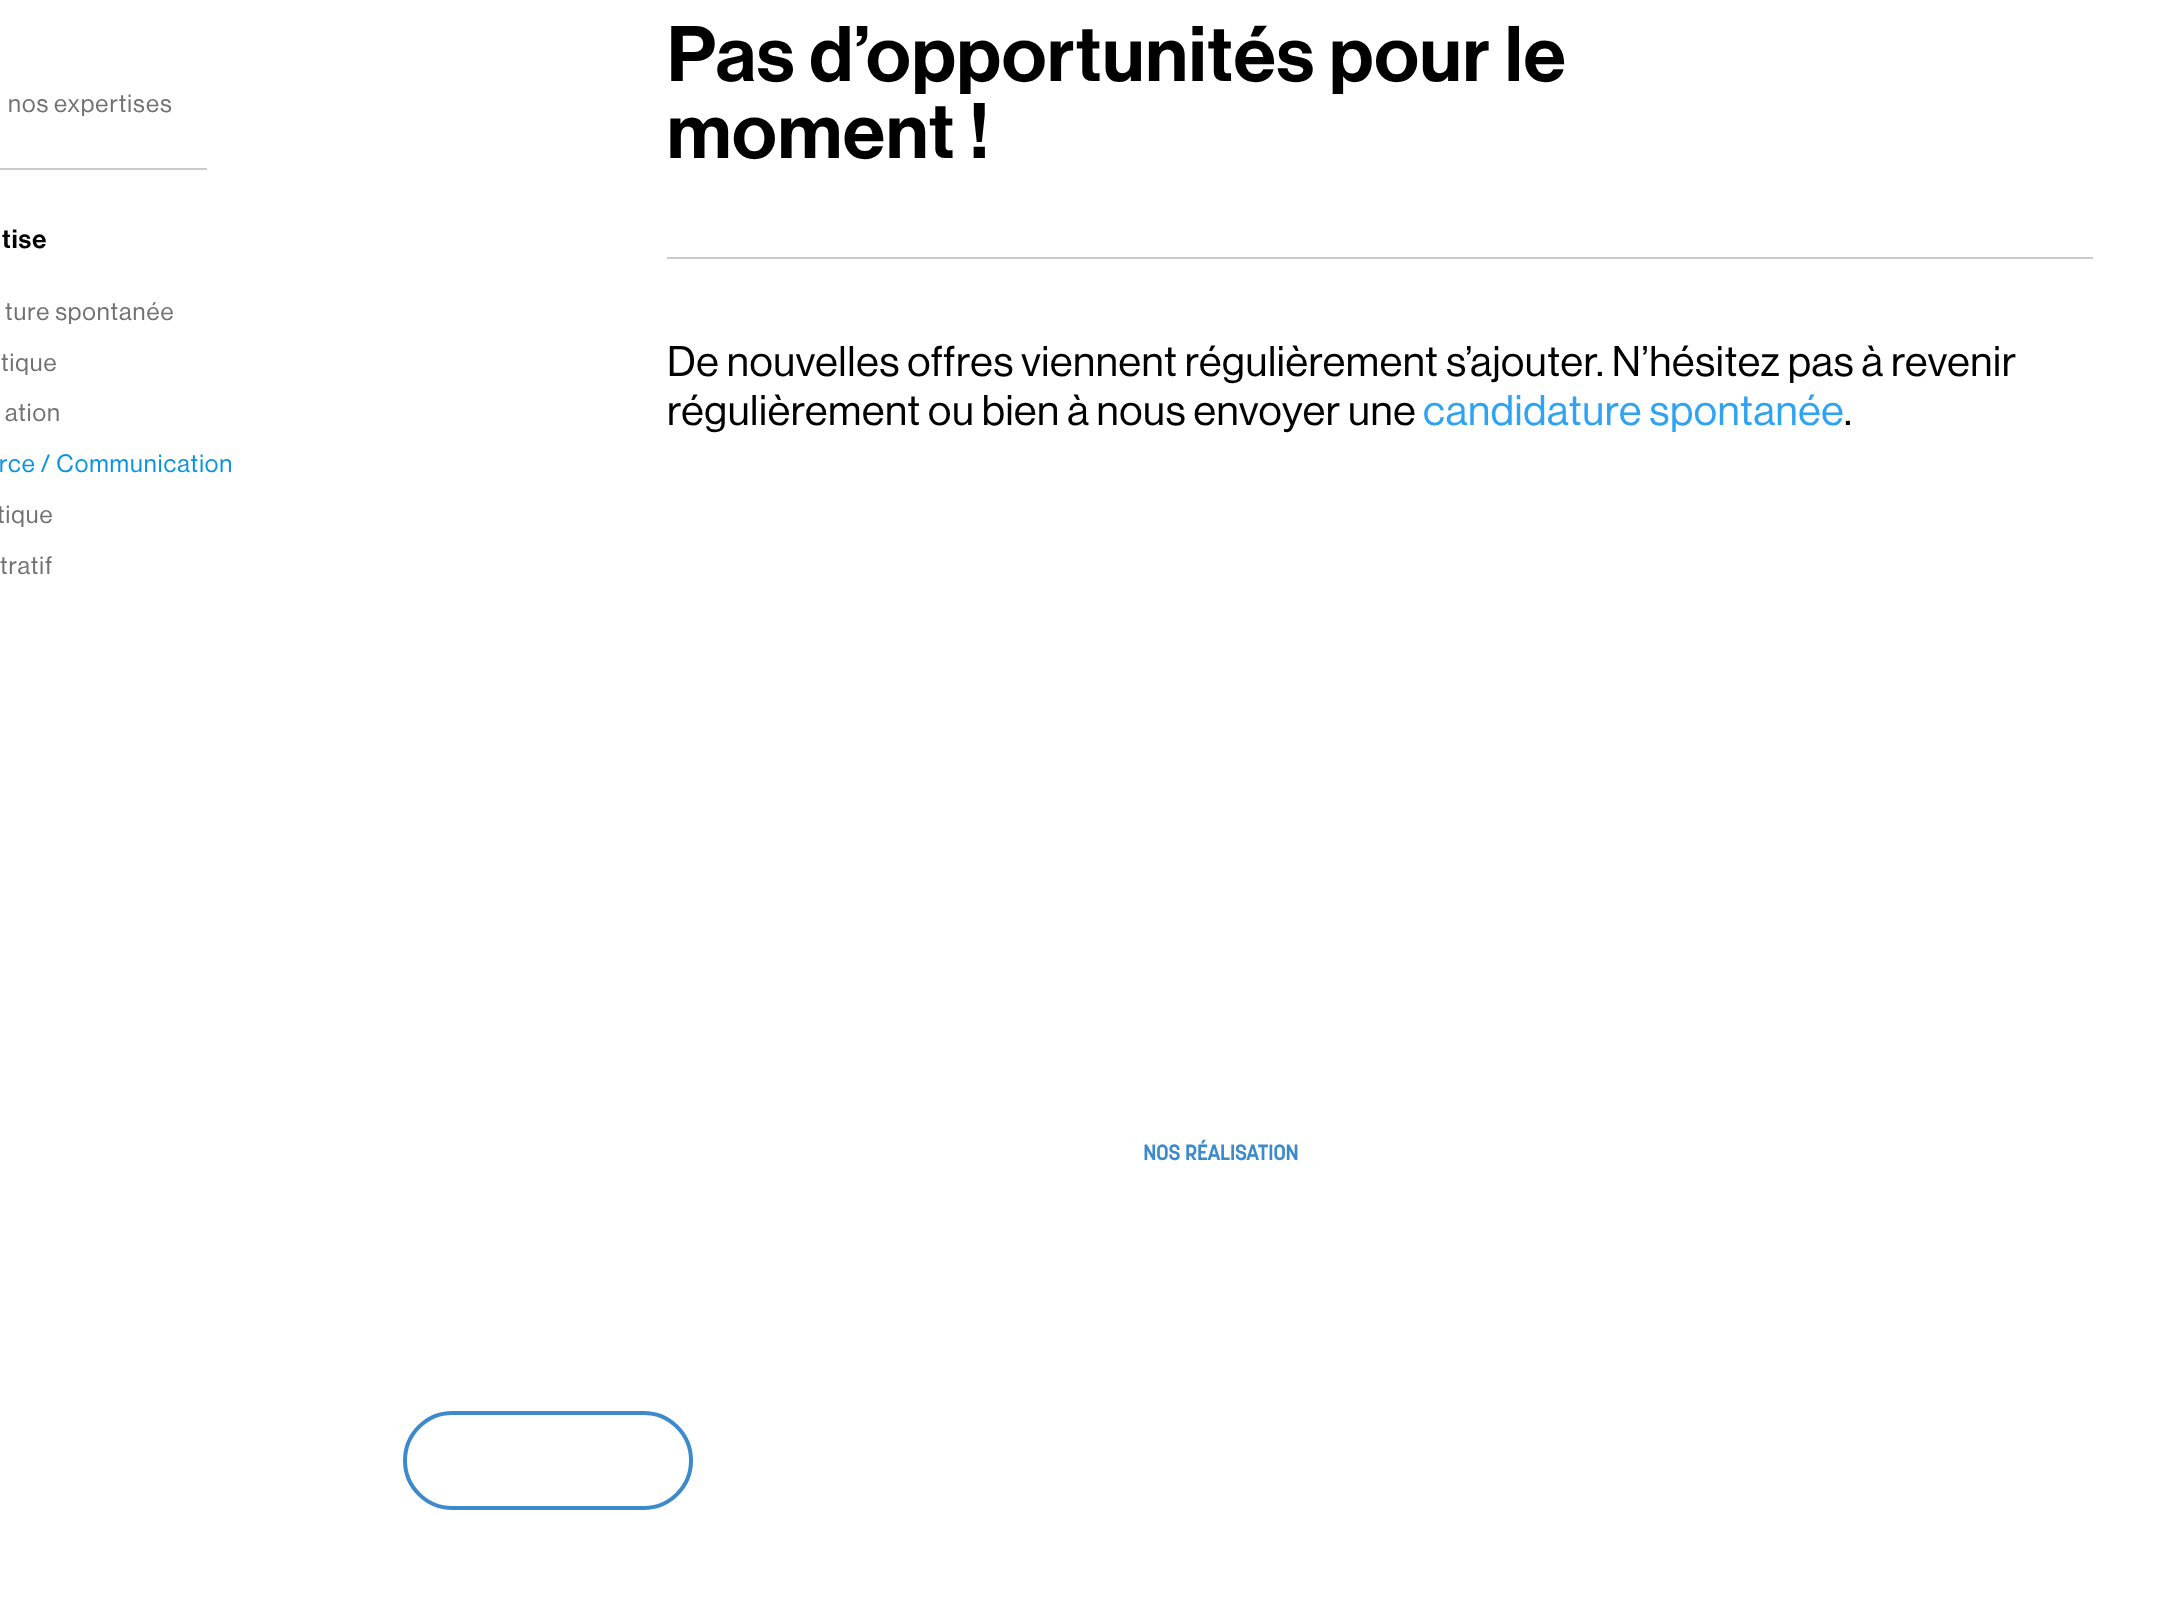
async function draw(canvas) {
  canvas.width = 2171
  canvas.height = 1615
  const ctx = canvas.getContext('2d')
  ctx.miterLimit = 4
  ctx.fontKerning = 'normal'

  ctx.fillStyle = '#fff'
  ctx.fillRect(0, 0, 2171, 1615)
  ctx.letterSpacing = '1px'
  ctx.font = '24.5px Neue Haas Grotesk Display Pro'
  ctx.fillStyle = '#727171'
  ctx.fillText('nos expertises', 8, 112)
  ctx.fillStyle = '#cacaca'
  ctx.fillRect(0, 168, 207, 2)
  ctx.font = '600 26px Neue Haas Grotesk Display Pro'
  ctx.fillStyle = '#000'
  ctx.fillText('tise', 2, 248)
  ctx.font = '24.5px Neue Haas Grotesk Display Pro'
  ctx.fillStyle = '#727171'
  ctx.fillText('ture spontanée', 5, 320)
  ctx.fillText('tique', 1, 371)
  ctx.fillText('ation', 5, 421)
  ctx.fillStyle = '#0693e3'
  ctx.fillText('rce / Communication', -1, 472)
  ctx.fillStyle = '#727171'
  ctx.fillText('tique', -3, 523)
  ctx.fillText('tratif', 0, 574)
  ctx.letterSpacing = '1.15px'
  ctx.font = '600 77px Neue Haas Grotesk Display Pro'
  ctx.fillStyle = '#000'
  ctx.fillText('Pas d’opportunités pour le', 667, 81)
  ctx.fillText('moment !', 667, 158)
  ctx.fillStyle = '#cacaca'
  ctx.fillRect(667, 257, 1426, 2)
  ctx.letterSpacing = '0.63px'
  ctx.font = '42px Neue Haas Grotesk Display Pro'
  ctx.fillStyle = '#000'
  ctx.fillText('De nouvelles offres viennent régulièrement s’ajouter. N’hésitez pas à revenir', 667, 376)
  ctx.fillText('régulièrement ou bien à nous envoyer une', 667, 425)
  ctx.fillStyle = '#2ea3f2'
  ctx.fillText('candidature spontanée', 1423, 425)
  ctx.fillStyle = '#000'
  ctx.fillText('.', 1844, 425)
  ctx.letterSpacing = '0px'
  ctx.font = 'bold 21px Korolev'
  ctx.fillStyle = '#3c8acb'
  ctx.fillText('NOS RÉALISATION', 1143, 1160)
  ctx.beginPath()
  ctx.roundRect(405, 1413, 286, 95, 47.5)
  ctx.strokeStyle = '#3c8acb'
  ctx.lineWidth = 4
  ctx.stroke()
}

draw(document.querySelector('canvas'))
